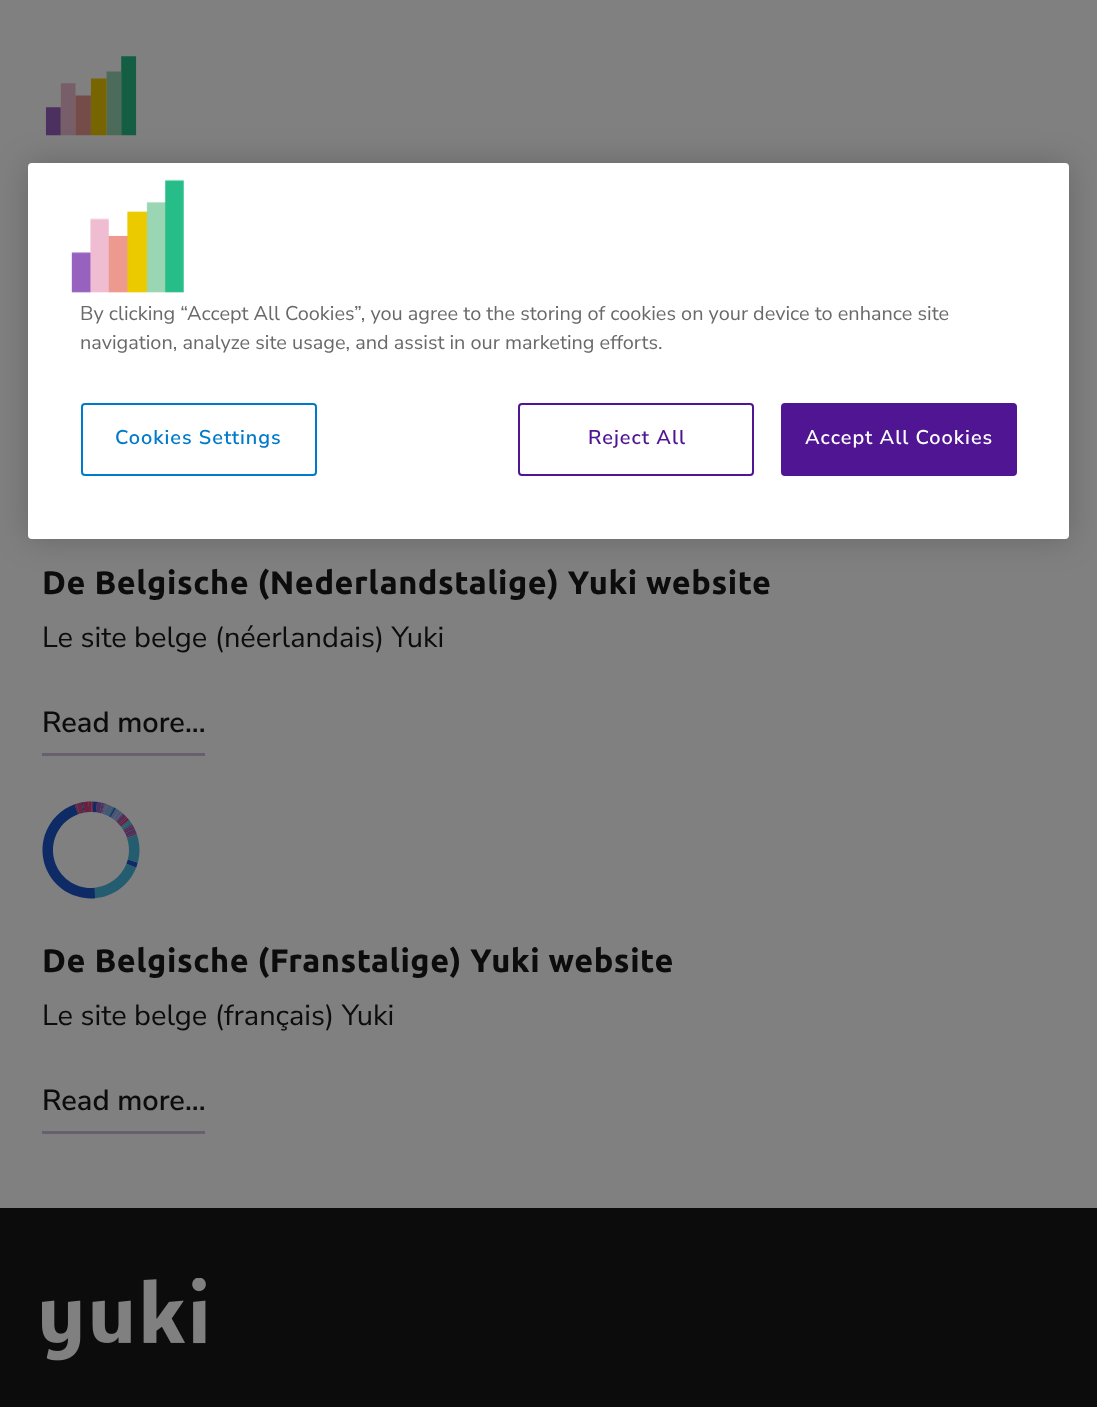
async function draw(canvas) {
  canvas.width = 1097
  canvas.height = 1407
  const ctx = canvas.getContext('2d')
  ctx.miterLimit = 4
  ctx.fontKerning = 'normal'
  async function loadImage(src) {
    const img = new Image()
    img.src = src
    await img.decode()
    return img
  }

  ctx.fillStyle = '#808080'
  ctx.fillRect(0, 0, 1097, 1407)
  ctx.drawImage(await loadImage('image1.png'), 45, 56, 92, 80)
  ctx.fillStyle = '#00000033'
  ctx.filter = 'blur(16px)'
  ctx.beginPath()
  ctx.roundRect(28, 163, 1041, 376, 4)
  ctx.fill()
  ctx.filter = 'none'
  ctx.fillStyle = '#fff'
  ctx.beginPath()
  ctx.roundRect(28, 163, 1041, 376, 4)
  ctx.fill()
  ctx.drawImage(await loadImage('image0.png'), 71, 179, 113, 114)
  ctx.font = '200 19.9px Nunito Sans'
  ctx.fillStyle = '#696969'
  ctx.fillText('By clicking “Accept All Cookies”, you agree to the storing of cookies on your device to enhance site', 80, 320)
  ctx.fillText('navigation, analyze site usage, and assist in our marketing efforts.', 80, 349)
  ctx.beginPath()
  ctx.roundRect(82, 404, 234, 71, 3)
  ctx.strokeStyle = '#007aca'
  ctx.lineWidth = 2
  ctx.stroke()
  ctx.letterSpacing = '1px'
  ctx.font = '200 19.9px "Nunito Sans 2"'
  ctx.fillStyle = '#007aca'
  ctx.fillText('Cookies Settings', 115, 444)
  ctx.beginPath()
  ctx.roundRect(519, 404, 234, 71, 3)
  ctx.strokeStyle = '#501592'
  ctx.stroke()
  ctx.fillStyle = '#501592'
  ctx.fillText('Reject All', 588, 444)
  ctx.beginPath()
  ctx.roundRect(782, 404, 234, 71, 3)
  ctx.fill()
  ctx.stroke()
  ctx.fillStyle = '#fff'
  ctx.fillText('Accept All Cookies', 805, 444)
  ctx.letterSpacing = '0.55px'
  ctx.font = 'bold 32.5px Ubuntu'
  ctx.fillStyle = '#0c0c0c'
  ctx.fillText('De Belgische (Nederlandstalige) Yuki website', 42, 594)
  ctx.letterSpacing = '0px'
  ctx.font = '200 29px Nunito Sans'
  ctx.fillText('Le site belge (néerlandais) Yuki', 42, 647)
  ctx.font = '200 29px "Nunito Sans 2"'
  ctx.fillText('Read more...', 42, 732)
  ctx.fillStyle = '#68606e'
  ctx.fillRect(42, 753, 163, 3)
  ctx.drawImage(await loadImage('image2.png'), 42, 801, 98, 98)
  ctx.letterSpacing = '0.55px'
  ctx.font = 'bold 32.5px Ubuntu'
  ctx.fillStyle = '#0c0c0c'
  ctx.fillText('De Belgische (Franstalige) Yuki website', 42, 972)
  ctx.letterSpacing = '0px'
  ctx.font = '200 29px Nunito Sans'
  ctx.fillText('Le site belge (français) Yuki', 42, 1025)
  ctx.font = '200 29px "Nunito Sans 2"'
  ctx.fillText('Read more...', 42, 1110)
  ctx.fillStyle = '#68606e'
  ctx.fillRect(42, 1131, 163, 3)
  ctx.fillStyle = '#0c0c0c'
  ctx.fillRect(0, 1208, 1097, 199)
  ctx.drawImage(await loadImage('image3.png'), 42, 1278, 164, 83)
}

draw(document.querySelector('canvas'))
